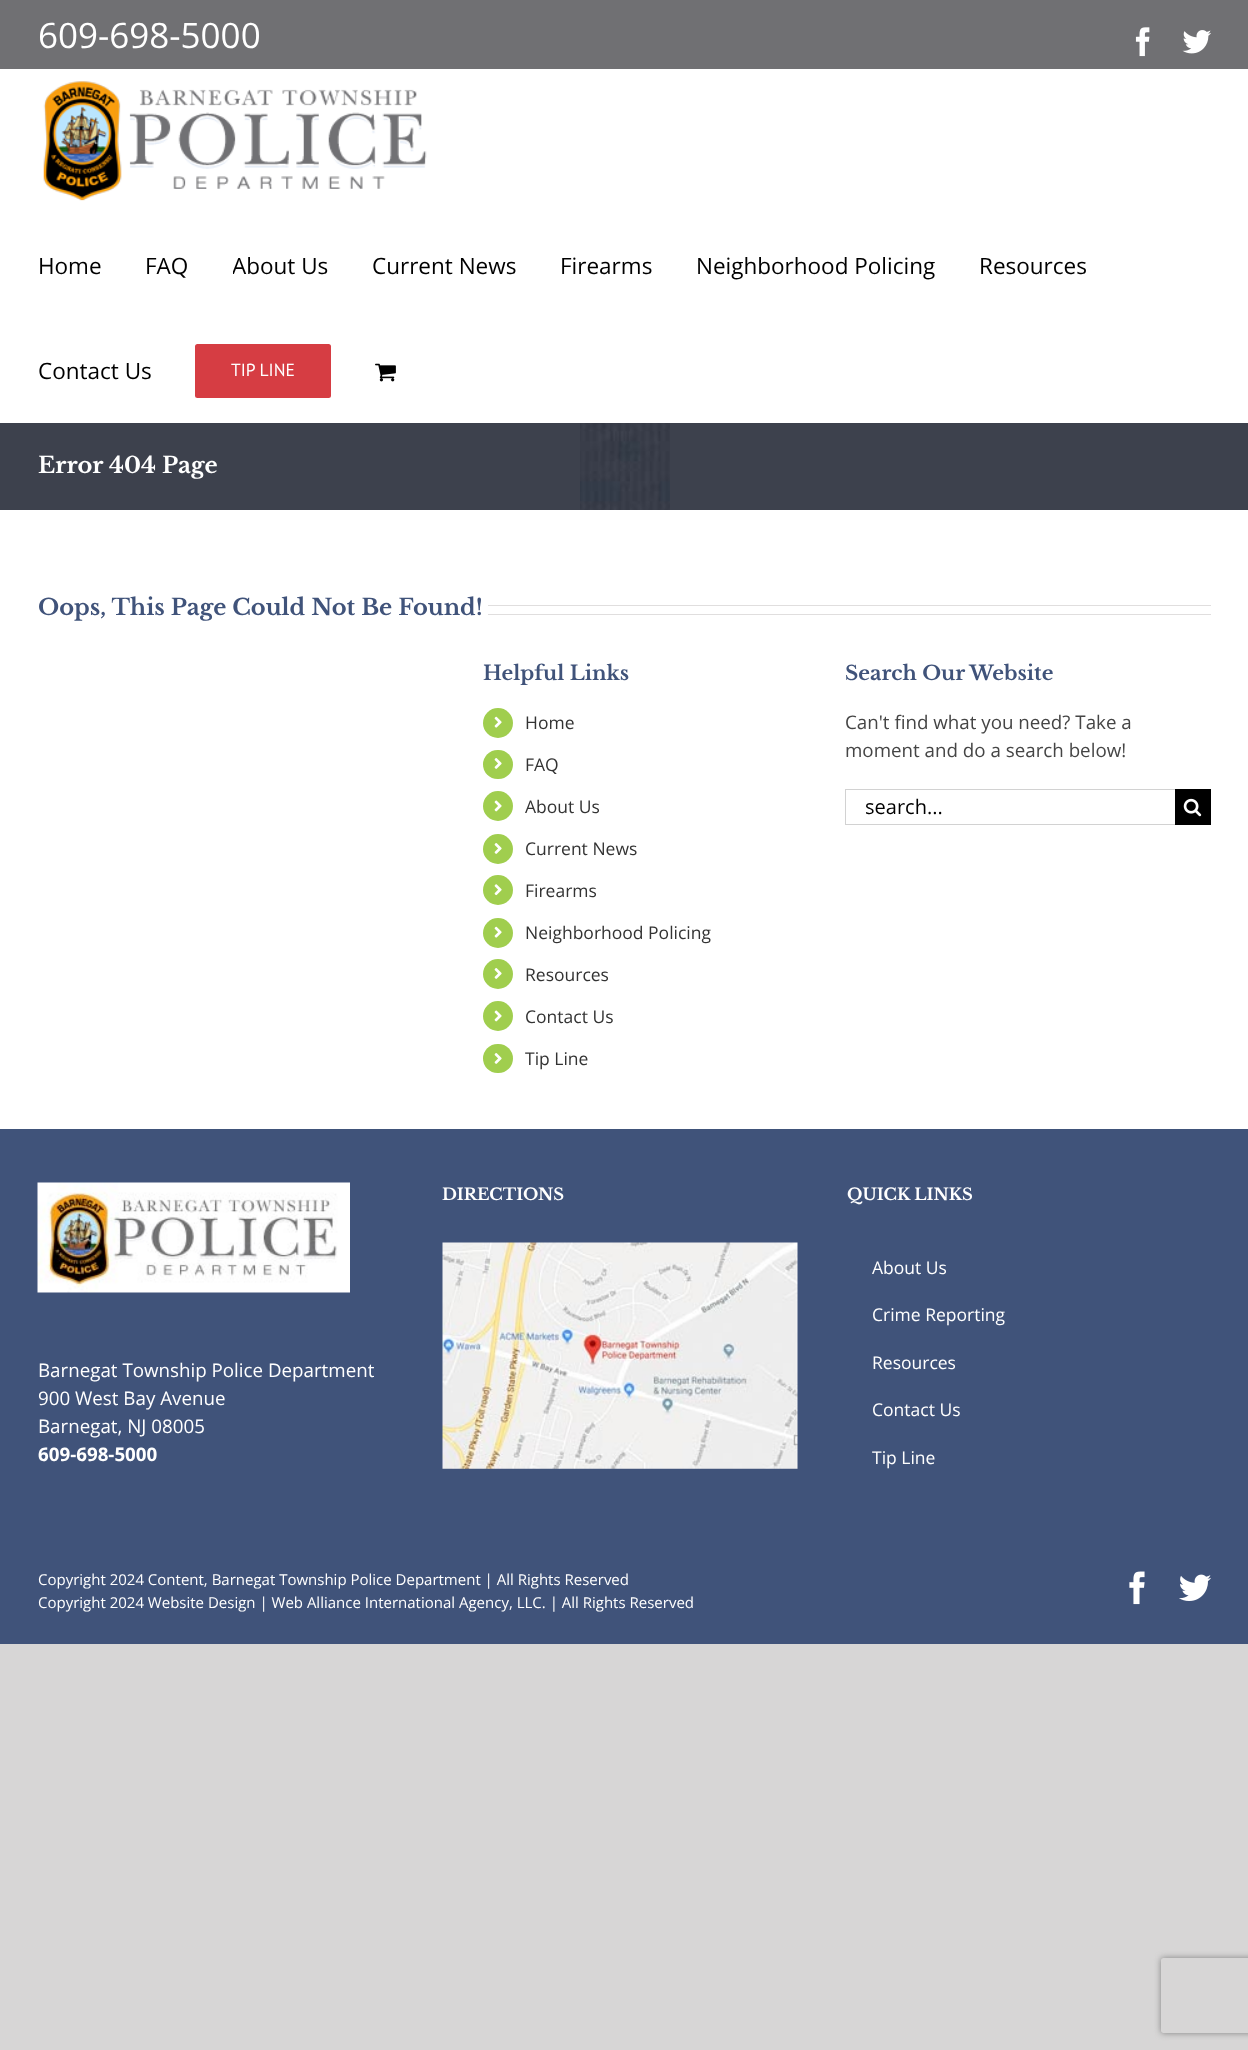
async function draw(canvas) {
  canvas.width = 1248
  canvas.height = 2050
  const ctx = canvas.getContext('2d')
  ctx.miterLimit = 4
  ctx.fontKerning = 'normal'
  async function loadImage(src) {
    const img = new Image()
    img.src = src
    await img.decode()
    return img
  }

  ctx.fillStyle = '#d7d6d6'
  ctx.fillRect(0, 0, 1248, 2050)
  ctx.fillStyle = '#fff'
  ctx.fillRect(0, 510, 1248, 619)
  ctx.fillStyle = '#707073'
  ctx.fillRect(0, 0, 1248, 69)
  ctx.fillStyle = '#fff'
  ctx.fillRect(0, 69, 1248, 354)
  ctx.font = '35px Open Sans'
  ctx.fillText('609-698-5000', 38, 48)
  ctx.drawImage(await loadImage('image0.png'), 1135, 27, 15, 30)
  ctx.drawImage(await loadImage('image1.png'), 1182, 30, 29, 24)
  ctx.drawImage(await loadImage('image2.png'), 43, 81, 384, 120)
  ctx.font = '22.5px Open Sans'
  ctx.fillStyle = '#000'
  ctx.fillText('Home', 38, 274)
  ctx.fillText('FAQ', 145, 274)
  ctx.save()
  ctx.beginPath()
  ctx.rect(233, 211, 140, 105)
  ctx.clip()
  ctx.fillText('About Us', 232, 274)
  ctx.restore()
  ctx.fillText('Current News', 372, 274)
  ctx.fillText('Firearms', 560, 274)
  ctx.fillText('Neighborhood Policing', 696, 274)
  ctx.fillText('Resources', 979, 274)
  ctx.fillText('Contact Us', 38, 379)
  ctx.fillStyle = '#d63d43'
  ctx.beginPath()
  ctx.roundRect(195, 344, 136, 54, 2.5)
  ctx.fill()
  ctx.font = '17.5px PT Sans'
  ctx.fillStyle = '#fff'
  ctx.fillText('TIP LINE', 231, 376)
  ctx.drawImage(await loadImage('image3.png'), 375, 363, 21, 19)
  ctx.fillStyle = '#3d414d'
  ctx.fillRect(0, 423, 1248, 87)
  ctx.drawImage(await loadImage('image4.png'), 580, 423, 90, 87)
  ctx.font = 'bold 22.5px Libre Baskerville'
  ctx.fillStyle = '#fff'
  ctx.fillText('Error 404 Page', 38, 473)
  ctx.fillStyle = '#40537a'
  ctx.fillText('Oops, This Page Could Not Be Found!', 38, 615)
  ctx.fillStyle = '#e0dede'
  ctx.fillRect(488, 605, 723, 1)
  ctx.fillRect(488, 614, 723, 1)
  ctx.font = 'bold 20px Libre Baskerville'
  ctx.fillStyle = '#40537a'
  ctx.fillText('Helpful Links', 483, 680)
  ctx.fillStyle = '#a0ce4e'
  ctx.beginPath()
  ctx.arc(498, 723, 15, 0, 2 * Math.PI)
  ctx.fill()
  ctx.drawImage(await loadImage('image5.png'), 494, 716, 8, 12)
  ctx.font = '17.5px Open Sans'
  ctx.fillStyle = '#333'
  ctx.fillText('Home', 525, 729)
  ctx.fillStyle = '#a0ce4e'
  ctx.beginPath()
  ctx.roundRect(483, 750, 30, 29, 14.5)
  ctx.fill()
  ctx.drawImage(await loadImage('image6.png'), 494, 758, 8, 11)
  ctx.fillStyle = '#333'
  ctx.fillText('FAQ', 525, 771)
  ctx.fillStyle = '#a0ce4e'
  ctx.beginPath()
  ctx.arc(498, 806, 15, 0, 2 * Math.PI)
  ctx.fill()
  ctx.drawImage(await loadImage('image7.png'), 494, 800, 8, 12)
  ctx.fillStyle = '#333'
  ctx.fillText('About Us', 525, 813)
  ctx.fillStyle = '#a0ce4e'
  ctx.beginPath()
  ctx.arc(498, 849, 15, 0, 2 * Math.PI)
  ctx.fill()
  ctx.drawImage(await loadImage('image6.png'), 494, 843, 8, 11)
  ctx.fillStyle = '#333'
  ctx.fillText('Current News', 525, 855)
  ctx.fillStyle = '#a0ce4e'
  ctx.beginPath()
  ctx.arc(498, 890, 15, 0, 2 * Math.PI)
  ctx.fill()
  ctx.drawImage(await loadImage('image8.png'), 494, 884, 8, 12)
  ctx.fillStyle = '#333'
  ctx.fillText('Firearms', 525, 897)
  ctx.fillStyle = '#a0ce4e'
  ctx.beginPath()
  ctx.arc(498, 933, 15, 0, 2 * Math.PI)
  ctx.fill()
  ctx.drawImage(await loadImage('image5.png'), 494, 926, 8, 12)
  ctx.fillStyle = '#333'
  ctx.fillText('Neighborhood Policing', 525, 939)
  ctx.fillStyle = '#a0ce4e'
  ctx.beginPath()
  ctx.arc(498, 974, 15, 0, 2 * Math.PI)
  ctx.fill()
  ctx.drawImage(await loadImage('image6.png'), 494, 968, 8, 11)
  ctx.fillStyle = '#333'
  ctx.fillText('Resources', 525, 981)
  ctx.fillStyle = '#a0ce4e'
  ctx.beginPath()
  ctx.arc(498, 1016, 15, 0, 2 * Math.PI)
  ctx.fill()
  ctx.drawImage(await loadImage('image7.png'), 494, 1010, 8, 12)
  ctx.fillStyle = '#333'
  ctx.fillText('Contact Us', 525, 1023)
  ctx.fillStyle = '#a0ce4e'
  ctx.beginPath()
  ctx.roundRect(483, 1044, 30, 29, 14.5)
  ctx.fill()
  ctx.drawImage(await loadImage('image6.png'), 494, 1053, 8, 11)
  ctx.fillStyle = '#333'
  ctx.fillText('Tip Line', 525, 1065)
  ctx.font = 'bold 20px Libre Baskerville'
  ctx.fillStyle = '#40537a'
  ctx.fillText('Search Our Website', 845, 680)
  ctx.font = '18.75px Open Sans'
  ctx.fillStyle = '#454545'
  ctx.fillText('Can\'t find what you need? Take a', 845, 729)
  ctx.fillText('moment and do a search below!', 845, 757)
  ctx.fillStyle = '#d2d2d2'
  ctx.fillRect(845, 789, 330, 1)
  ctx.fillRect(845, 824, 330, 1)
  ctx.fillRect(845, 789, 1, 36)
  ctx.font = '20px Open Sans'
  ctx.fillStyle = '#000'
  ctx.fillText('search...', 865, 814)
  ctx.fillRect(1175, 789, 36, 36)
  ctx.drawImage(await loadImage('image9.png'), 1183, 798, 19, 19)
  ctx.fillStyle = '#40537a'
  ctx.fillRect(0, 1129, 1248, 515)
  ctx.drawImage(await loadImage('image10.png'), 37, 1182, 313, 111)
  ctx.font = '18.75px Open Sans'
  ctx.fillStyle = '#fff'
  ctx.fillText('Barnegat Township Police Department', 38, 1377)
  ctx.fillText('900 West Bay Avenue', 38, 1405)
  ctx.fillText('Barnegat, NJ 08005', 38, 1433)
  ctx.font = 'bold 18.75px Open Sans'
  ctx.fillText('609-698-5000', 38, 1461)
  ctx.font = 'bold 16.25px Libre Baskerville'
  ctx.fillText('DIRECTIONS', 442, 1200)
  ctx.drawImage(await loadImage('image11.png'), 442, 1242, 356, 227)
  ctx.fillText('QUICK LINKS', 847, 1200)
  ctx.font = '17.5px Open Sans'
  ctx.fillText('About Us', 872, 1274)
  ctx.fillText('Crime Reporting', 872, 1321)
  ctx.fillText('Resources', 872, 1369)
  ctx.fillText('Contact Us', 872, 1416)
  ctx.fillText('Tip Line', 872, 1464)
  ctx.font = '15px Open Sans'
  ctx.fillText('Copyright 2024 Content, Barnegat Township Police Department | All Rights Reserved', 38, 1585)
  ctx.fillText('Copyright 2024 Website Design | Web Alliance International Agency, LLC. | All Rights Reserved', 38, 1608)
  ctx.drawImage(await loadImage('image12.png'), 1129, 1571, 16, 34)
  ctx.drawImage(await loadImage('image13.png'), 1179, 1574, 32, 27)
  ctx.save()
  ctx.beginPath()
  ctx.moveTo(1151, 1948)
  ctx.lineTo(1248, 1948)
  ctx.lineTo(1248, 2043)
  ctx.lineTo(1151, 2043)
  ctx.closePath()
  ctx.moveTo(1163.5, 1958)
  ctx.lineTo(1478.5, 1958)
  ctx.bezierCurveTo(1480, 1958, 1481, 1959, 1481, 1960.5)
  ctx.lineTo(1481, 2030.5)
  ctx.bezierCurveTo(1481, 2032, 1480, 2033, 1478.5, 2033)
  ctx.lineTo(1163.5, 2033)
  ctx.bezierCurveTo(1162, 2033, 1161, 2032, 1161, 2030.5)
  ctx.lineTo(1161, 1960.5)
  ctx.bezierCurveTo(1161, 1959, 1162, 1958, 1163.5, 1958)
  ctx.closePath()
  ctx.clip('evenodd')
  ctx.fillStyle = '#808080'
  ctx.filter = 'blur(3px)'
  ctx.beginPath()
  ctx.roundRect(1161, 1958, 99, 75, 2.5)
  ctx.fill()
  ctx.filter = 'none'
  ctx.restore()
}

draw(document.querySelector('canvas'))
